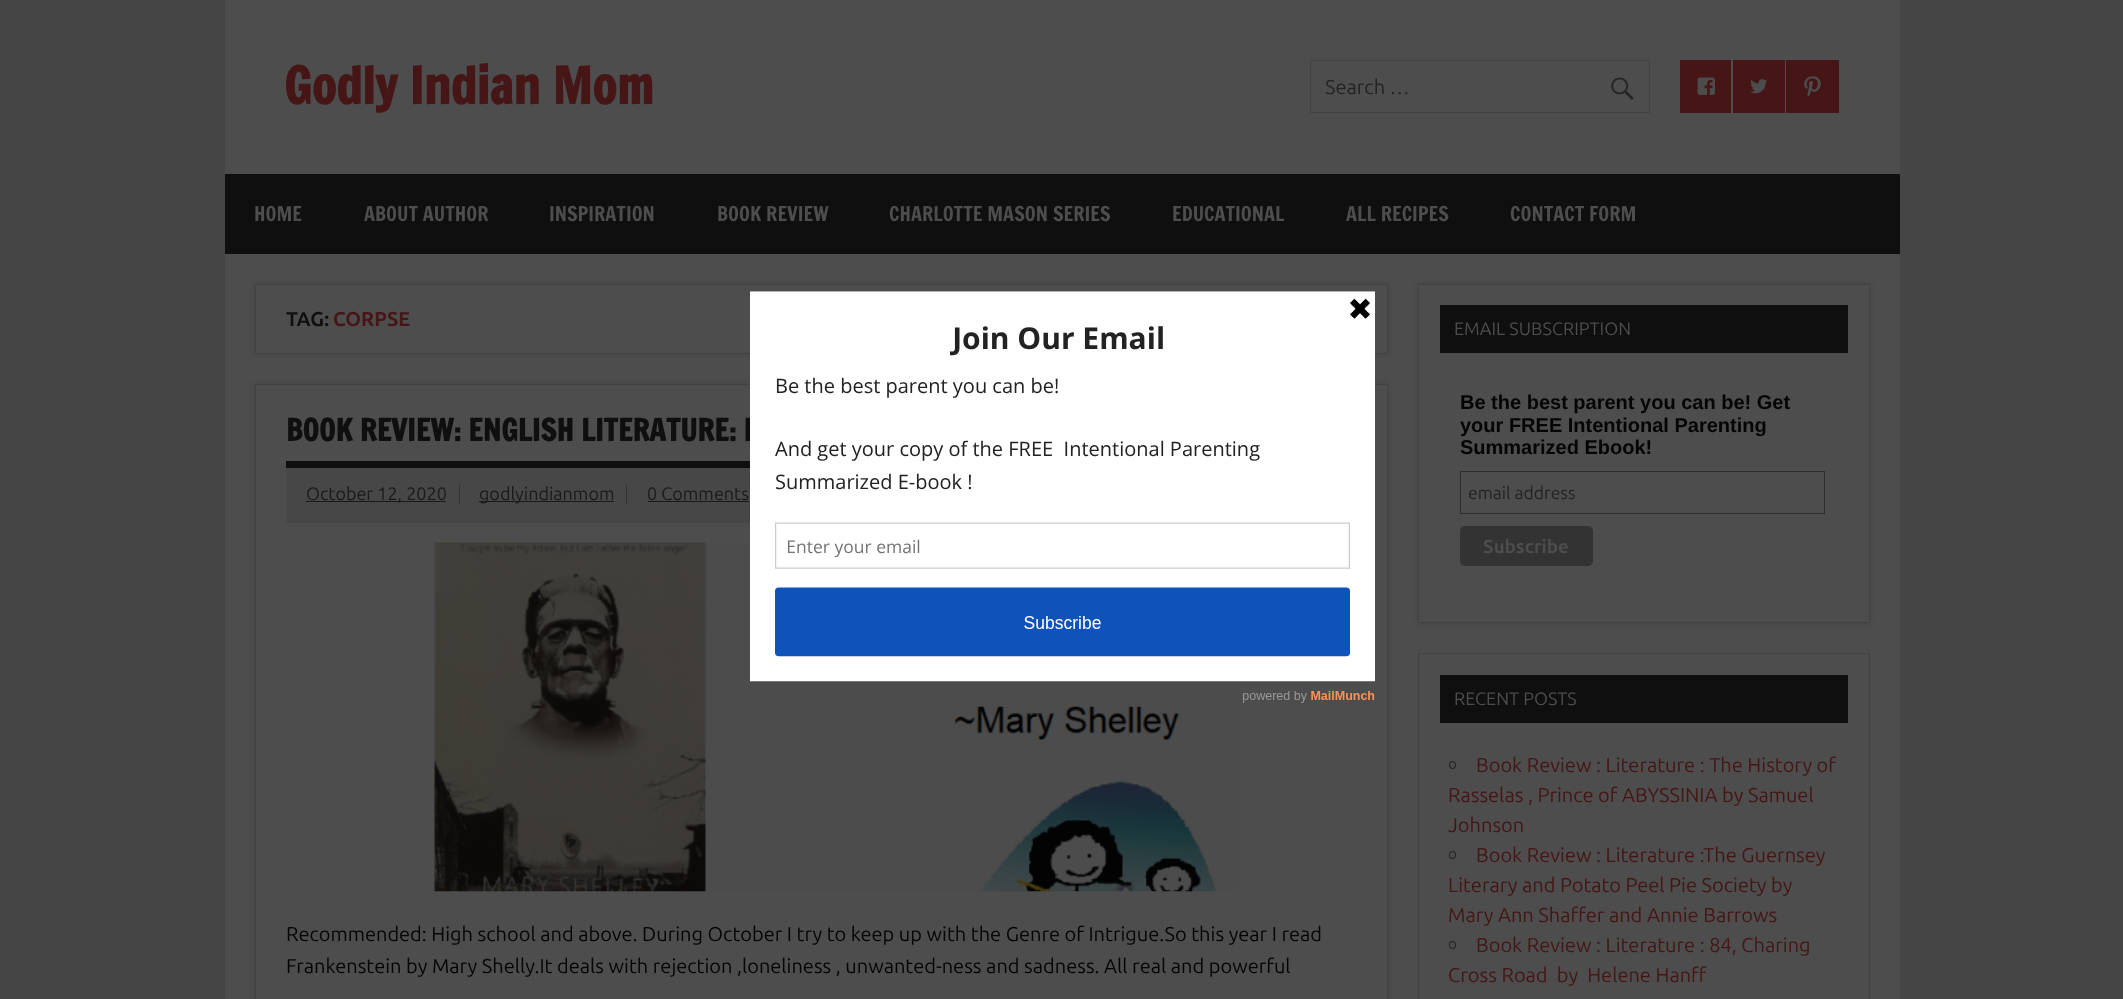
async function draw(canvas) {
  canvas.width = 2123
  canvas.height = 999
  const ctx = canvas.getContext('2d')
  ctx.miterLimit = 4
  ctx.fontKerning = 'normal'
  async function loadImage(src) {
    const img = new Image()
    img.src = src
    await img.decode()
    return img
  }

  ctx.fillStyle = '#454545'
  ctx.fillRect(0, 0, 2123, 999)
  ctx.fillStyle = '#4d4d4d'
  ctx.fillRect(225, 0, 1675, 999)
  ctx.font = 'bold 50px Francois One'
  ctx.fillStyle = '#461515'
  ctx.fillText('Godly Indian Mom', 284, 104)
  ctx.strokeStyle = '#424242'
  ctx.strokeRect(1310.5, 60.5, 339, 52)
  ctx.font = '20px Ubuntu'
  ctx.fillStyle = '#232323'
  ctx.fillText('Search …', 1325, 94)
  ctx.drawImage(await loadImage('image0.png'), 1611, 77, 23, 23)
  ctx.fillStyle = '#461515'
  ctx.fillRect(1680, 60, 51, 53)
  ctx.drawImage(await loadImage('image1.png'), 1697, 77, 18, 18)
  ctx.fillRect(1733, 60, 52, 53)
  ctx.drawImage(await loadImage('image2.png'), 1750, 79, 18, 15)
  ctx.fillRect(1786, 60, 53, 53)
  ctx.drawImage(await loadImage('image3.png'), 1804, 76, 17, 21)
  ctx.fillStyle = '#0f0f0f'
  ctx.fillRect(225, 174, 1675, 80)
  ctx.font = '20px Francois One'
  ctx.fillStyle = '#4d4d4d'
  ctx.fillText('HOME', 254, 221)
  ctx.fillText('ABOUT AUTHOR', 364, 221)
  ctx.fillText('INSPIRATION', 549, 221)
  ctx.fillText('BOOK REVIEW', 717, 221)
  ctx.fillText('CHARLOTTE MASON SERIES', 889, 221)
  ctx.fillText('EDUCATIONAL', 1172, 221)
  ctx.fillText('ALL RECIPES', 1346, 221)
  ctx.fillText('CONTACT FORM', 1510, 221)
  ctx.fillStyle = '#424242'
  ctx.filter = 'blur(2.5px)'
  ctx.beginPath()
  ctx.rect(255, 284, 1133, 70)
  ctx.fill()
  ctx.filter = 'none'
  ctx.fillStyle = '#4d4d4d'
  ctx.beginPath()
  ctx.rect(255.5, 284.5, 1132, 69)
  ctx.fill()
  ctx.stroke()
  ctx.font = 'bold 20px Ubuntu'
  ctx.fillStyle = '#0f0f0f'
  ctx.fillText('TAG:', 286, 326)
  ctx.fillStyle = '#461515'
  ctx.fillText('CORPSE', 333, 326)
  ctx.fillStyle = '#424242'
  ctx.filter = 'blur(2.5px)'
  ctx.beginPath()
  ctx.rect(255, 384, 1133, 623)
  ctx.fill()
  ctx.filter = 'none'
  ctx.fillStyle = '#4d4d4d'
  ctx.beginPath()
  ctx.rect(255.5, 384.5, 1132, 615)
  ctx.fill()
  ctx.stroke()
  ctx.fillStyle = '#0f0f0f'
  ctx.fillRect(286, 461, 464, 7)
  ctx.font = 'bold 30px Francois One'
  ctx.fillText('BOOK REVIEW: ENGLISH LITERATURE: F', 286, 441)
  ctx.fillStyle = '#474747'
  ctx.fillRect(286, 468, 464, 55)
  ctx.fillStyle = '#1a1a1a'
  ctx.fillRect(306, 501, 140, 1)
  ctx.font = '18px Ubuntu'
  ctx.fillText('October 12, 2020', 306, 500)
  ctx.fillStyle = '#333'
  ctx.fillRect(459, 484, 1, 20)
  ctx.fillStyle = '#1a1a1a'
  ctx.fillRect(479, 501, 135, 1)
  ctx.fillText('godlyindianmom', 479, 500)
  ctx.fillStyle = '#333'
  ctx.fillRect(626, 484, 1, 20)
  ctx.fillStyle = '#1a1a1a'
  ctx.fillText('0 Comments', 647, 500)
  ctx.fillRect(648, 501, 101, 1)
  ctx.drawImage(await loadImage('image4.png'), 434, 542, 805, 350)
  ctx.font = '20px Ubuntu'
  ctx.fillStyle = '#050505'
  ctx.fillText('Recommended: High school and above. During October I try to keep up with the Genre of Intrigue.So this year I read', 286, 941)
  ctx.fillText('Frankenstein by Mary Shelly.It deals with rejection ,loneliness , unwanted-ness and sadness. All real and powerful', 286, 973)
  ctx.fillStyle = '#424242'
  ctx.filter = 'blur(2.5px)'
  ctx.beginPath()
  ctx.rect(1418, 284, 452, 339)
  ctx.fill()
  ctx.filter = 'none'
  ctx.fillStyle = '#4d4d4d'
  ctx.beginPath()
  ctx.rect(1418.5, 284.5, 451, 338)
  ctx.fill()
  ctx.stroke()
  ctx.fillStyle = '#0f0f0f'
  ctx.fillRect(1440, 305, 408, 48)
  ctx.font = '18px Ubuntu'
  ctx.fillStyle = '#4d4d4d'
  ctx.fillText('EMAIL SUBSCRIPTION', 1454, 335)
  ctx.font = 'bold 20px Liberation Sans'
  ctx.fillStyle = '#050505'
  ctx.fillText('Be the best parent you can be! Get', 1460, 409)
  ctx.fillText('your FREE Intentional Parenting', 1460, 432)
  ctx.fillText('Summarized Ebook!', 1460, 454)
  ctx.strokeStyle = '#2e2e2e'
  ctx.strokeRect(1460.5, 471.5, 364, 42)
  ctx.font = '17.5px Ubuntu'
  ctx.fillStyle = '#232323'
  ctx.fillText('email address', 1468, 499)
  ctx.fillStyle = '#333'
  ctx.beginPath()
  ctx.roundRect(1460, 526, 133, 40, 5)
  ctx.fill()
  ctx.font = 'bold 18.75px Ubuntu'
  ctx.fillStyle = '#4d4d4d'
  ctx.fillText('Subscribe', 1483, 553)
  ctx.strokeStyle = '#424242'
  ctx.strokeRect(1418.5, 653.5, 451, 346)
  ctx.fillStyle = '#0f0f0f'
  ctx.fillRect(1440, 675, 408, 48)
  ctx.font = '18px Ubuntu'
  ctx.fillStyle = '#4d4d4d'
  ctx.fillText('RECENT POSTS', 1454, 705)
  ctx.beginPath()
  ctx.roundRect(1449.5, 761.5, 6, 7, 3)
  ctx.strokeStyle = '#1a1a1a'
  ctx.stroke()
  ctx.font = '20px Ubuntu'
  ctx.fillStyle = '#461515'
  ctx.fillText('Book Review : Literature : The History of', 1476, 772)
  ctx.fillText('Rasselas , Prince of ABYSSINIA by Samuel', 1448, 802)
  ctx.fillText('Johnson', 1448, 832)
  ctx.beginPath()
  ctx.roundRect(1449.5, 851.5, 6, 7, 3)
  ctx.stroke()
  ctx.fillText('Book Review : Literature :The Guernsey', 1476, 862)
  ctx.fillText('Literary and Potato Peel Pie Society by', 1448, 892)
  ctx.fillText('Mary Ann Shaffer and Annie Barrows', 1448, 922)
  ctx.beginPath()
  ctx.roundRect(1449.5, 941.5, 6, 7, 3)
  ctx.stroke()
  ctx.fillText('Book Review : Literature : 84, Charing', 1476, 952)
  ctx.fillText('Cross Road  by  Helene Hanff', 1448, 982)
  ctx.drawImage(await loadImage('image5.png'), 750, 291, 625, 412)
}

draw(document.querySelector('canvas'))
